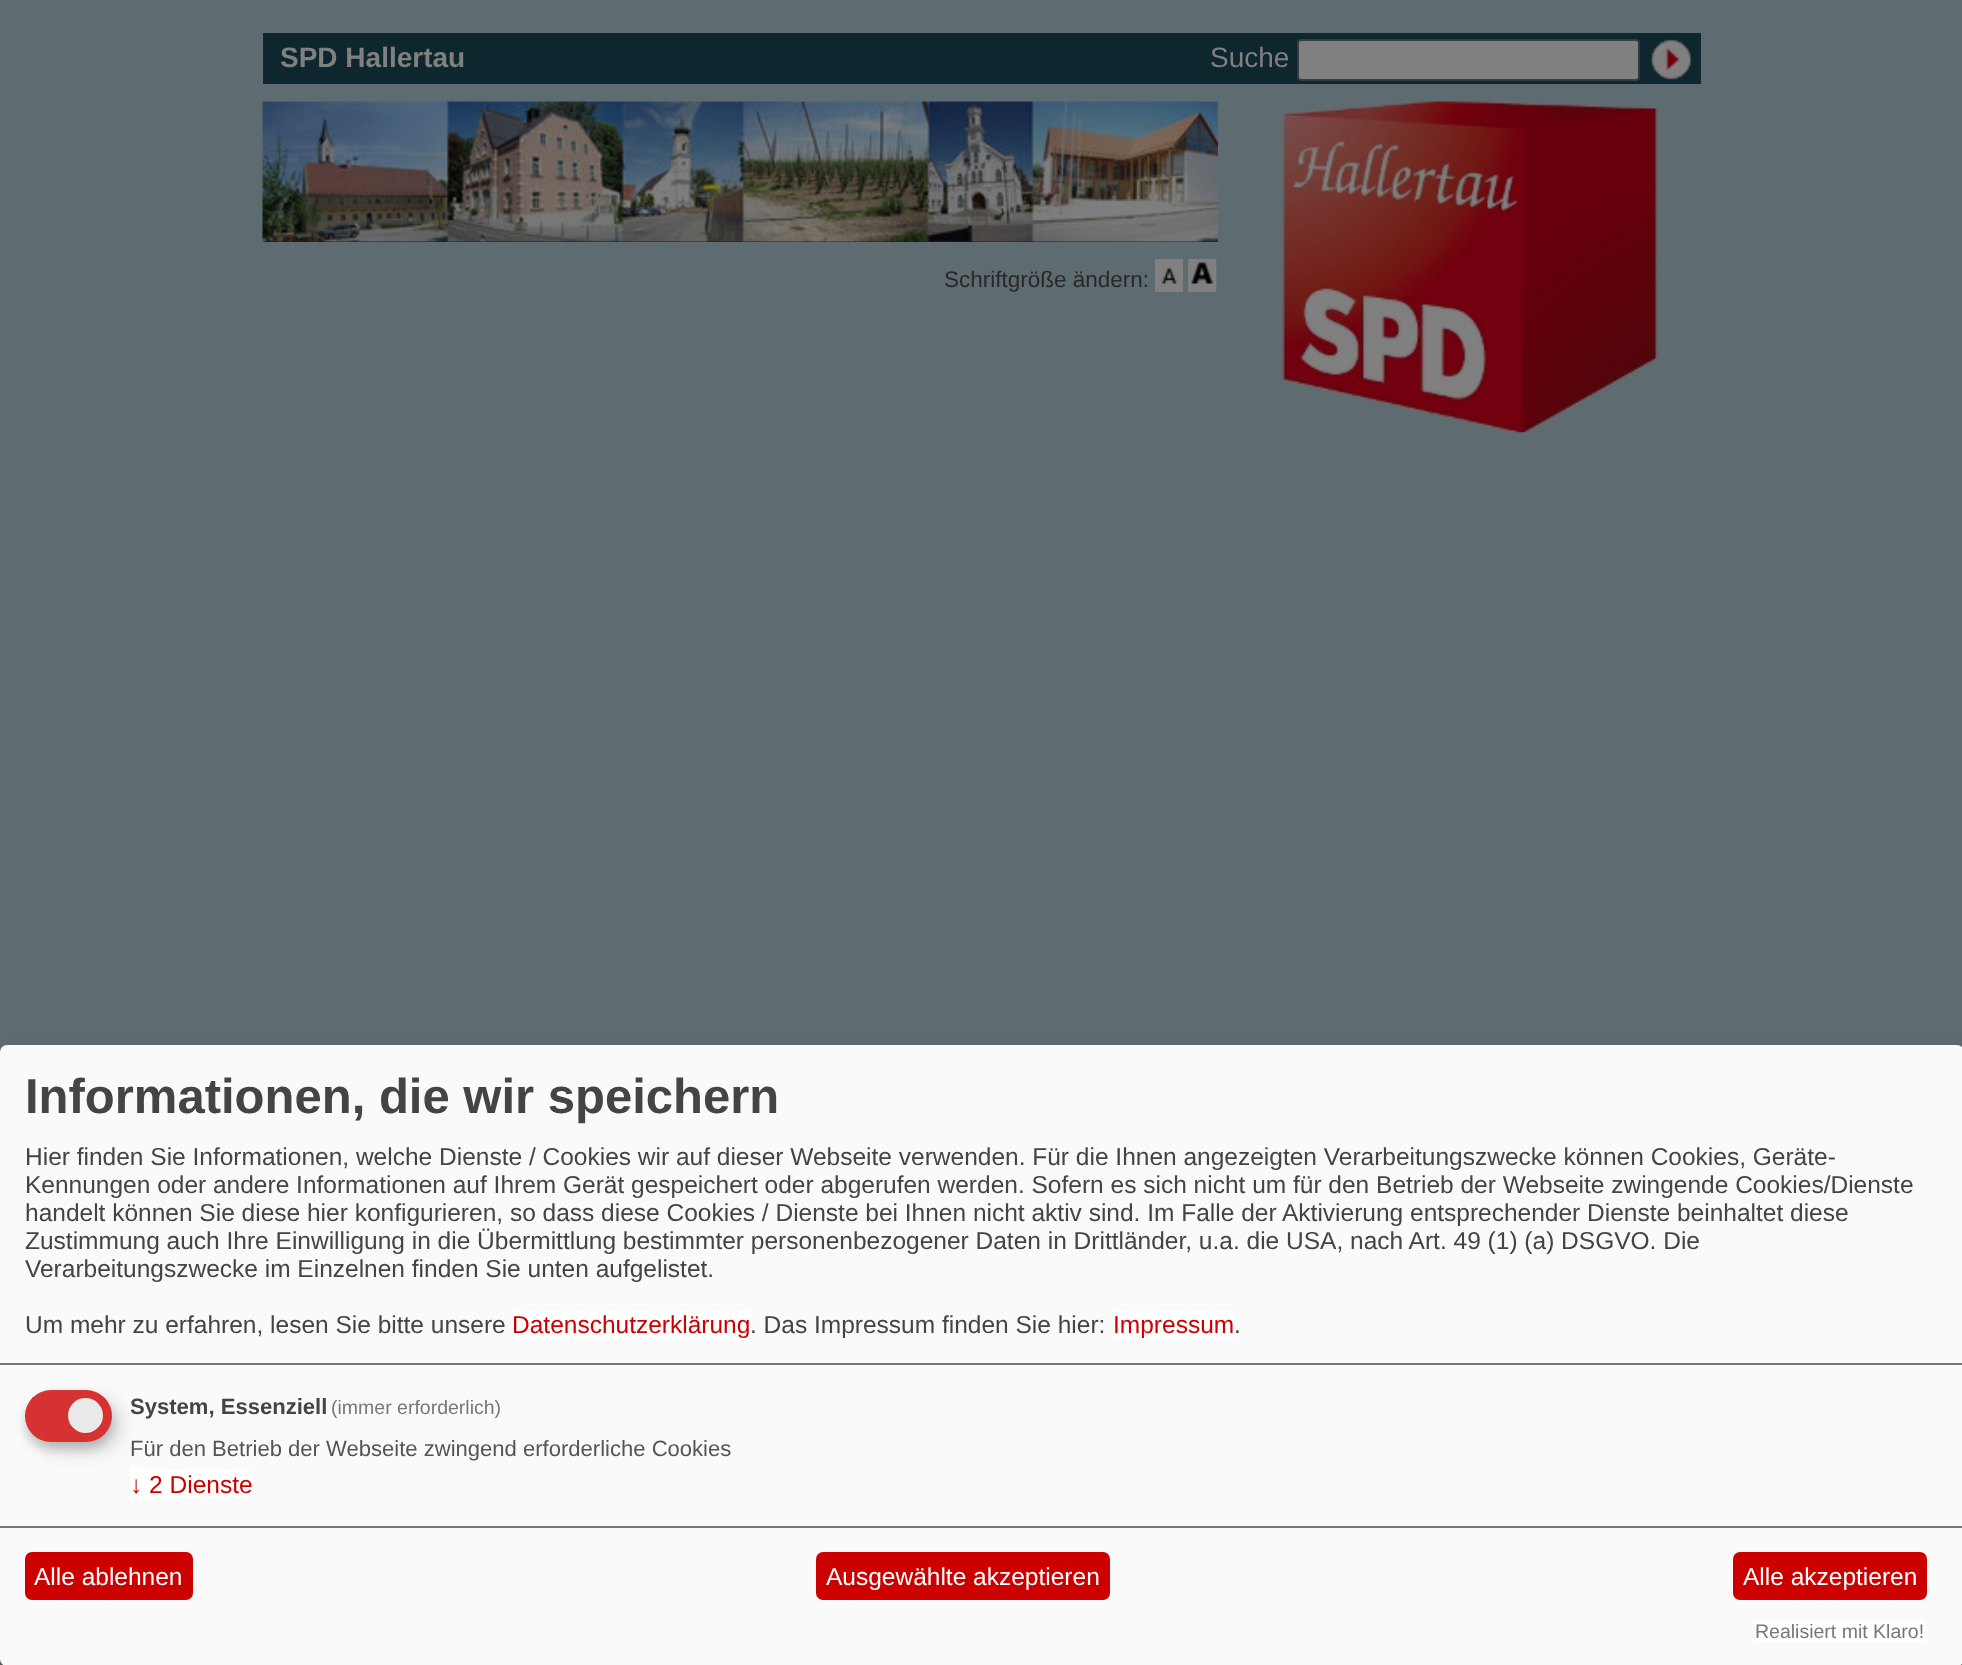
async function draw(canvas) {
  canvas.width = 1962
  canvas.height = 1665
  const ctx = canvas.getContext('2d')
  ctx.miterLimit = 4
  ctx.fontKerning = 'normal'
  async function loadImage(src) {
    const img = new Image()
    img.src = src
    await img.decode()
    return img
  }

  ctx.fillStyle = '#5e6c71'
  ctx.fillRect(0, 0, 1962, 1665)
  ctx.fillStyle = '#0e262e'
  ctx.fillRect(263, 33, 1438, 51)
  ctx.font = 'bold 28px Liberation Sans'
  ctx.fillStyle = '#808080'
  ctx.fillText('SPD Hallertau', 280, 67)
  ctx.font = '28px Liberation Sans'
  ctx.fillText('Suche', 1210, 67)
  ctx.beginPath()
  ctx.roundRect(1298, 40, 341, 40, 3)
  ctx.fill()
  ctx.strokeStyle = '#3b3b3b'
  ctx.lineWidth = 2
  ctx.stroke()
  ctx.drawImage(await loadImage('image0.png'), 1639, 39, 52, 41)
  ctx.fillStyle = '#600'
  ctx.fillRect(263, 241, 955, 1)
  ctx.drawImage(await loadImage('image1.png'), 262, 101, 956, 141)
  ctx.drawImage(await loadImage('image2.png'), 1239, 101, 462, 332)
  ctx.drawImage(await loadImage('image3.png'), 1155, 259, 28, 25)
  ctx.fillStyle = '#808080'
  ctx.fillRect(1188, 266, 28, 26)
  ctx.drawImage(await loadImage('image4.png'), 1188, 259, 29, 28)
  ctx.font = '22.5px Liberation Sans'
  ctx.fillStyle = '#282828'
  ctx.fillText('Schriftgröße ändern:', 944, 287)
  ctx.fillStyle = '#808080'
  ctx.fillRect(1155, 284, 28, 8)
  ctx.fillStyle = '#00000030'
  ctx.filter = 'blur(9px)'
  ctx.beginPath()
  ctx.roundRect(9, 1054, 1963, 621, 7)
  ctx.fill()
  ctx.filter = 'none'
  ctx.fillStyle = '#00000033'
  ctx.filter = 'blur(5px)'
  ctx.beginPath()
  ctx.roundRect(0, 1052, 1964, 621, 7)
  ctx.fill()
  ctx.filter = 'none'
  ctx.fillStyle = '#fafafa'
  ctx.beginPath()
  ctx.roundRect(0, 1045, 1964, 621, 7)
  ctx.fill()
  ctx.fillStyle = '#777'
  ctx.fillRect(0, 1363, 1962, 2)
  ctx.font = 'bold 49px Liberation Sans'
  ctx.fillStyle = '#444'
  ctx.fillText('Informationen, die wir speichern', 25, 1113)
  ctx.font = '24.5px Liberation Sans'
  ctx.fillText('Hier finden Sie Informationen, welche Dienste / Cookies wir auf dieser Webseite verwenden. Für die Ihnen angezeigten Verarbeitungszwecke können Cookies, Geräte-', 25, 1165)
  ctx.fillText('Kennungen oder andere Informationen auf Ihrem Gerät gespeichert oder abgerufen werden. Sofern es sich nicht um für den Betrieb der Webseite zwingende Cookies/Dienste', 25, 1193)
  ctx.fillText('handelt können Sie diese hier konfigurieren, so dass diese Cookies / Dienste bei Ihnen nicht aktiv sind. Im Falle der Aktivierung entsprechender Dienste beinhaltet diese', 25, 1221)
  ctx.fillText('Zustimmung auch Ihre Einwilligung in die Übermittlung bestimmter personenbezogener Daten in Drittländer, u.a. die USA, nach Art. 49 (1) (a) DSGVO. Die', 25, 1249)
  ctx.fillText('Verarbeitungszwecke im Einzelnen finden Sie unten aufgelistet.', 25, 1277)
  ctx.fillText('Um mehr zu erfahren, lesen Sie bitte unsere', 25, 1333)
  ctx.fillStyle = '#fff'
  ctx.fillRect(513, 1311, 238, 28)
  ctx.fillStyle = '#cd0000'
  ctx.fillText('Datenschutzerklärung', 512, 1333)
  ctx.fillStyle = '#444'
  ctx.fillText('. Das Impressum finden Sie hier:', 750, 1333)
  ctx.fillStyle = '#fff'
  ctx.fillRect(1113, 1311, 121, 28)
  ctx.fillStyle = '#cd0000'
  ctx.fillText('Impressum', 1113, 1333)
  ctx.fillStyle = '#444'
  ctx.fillText('.', 1234, 1333)
  ctx.fillStyle = '#fff'
  ctx.fillRect(130, 1467, 12, 35)
  ctx.fillRect(142, 1470, 110, 28)
  ctx.fillStyle = '#00000026'
  ctx.filter = 'blur(9px)'
  ctx.beginPath()
  ctx.roundRect(33, 1398, 88, 53, 26.5)
  ctx.fill()
  ctx.filter = 'none'
  ctx.fillStyle = '#32323233'
  ctx.filter = 'blur(5px)'
  ctx.beginPath()
  ctx.roundRect(25, 1397, 87, 52, 26)
  ctx.fill()
  ctx.filter = 'none'
  ctx.fillStyle = '#d63232'
  ctx.beginPath()
  ctx.roundRect(25, 1390, 87, 52, 26)
  ctx.fill()
  ctx.fillStyle = '#eaeaea'
  ctx.beginPath()
  ctx.arc(85.5, 1415.5, 17.5, 0, 2 * Math.PI)
  ctx.fill()
  ctx.font = 'bold 22.05px Liberation Sans'
  ctx.fillStyle = '#444'
  ctx.fillText('System, Essenziell', 130, 1414)
  ctx.font = '19.5px Liberation Sans'
  ctx.fillStyle = '#777'
  ctx.fillText('(immer erforderlich)', 331, 1414)
  ctx.font = '22.05px Liberation Sans'
  ctx.fillStyle = '#555'
  ctx.fillText('Für den Betrieb der Webseite zwingend erforderliche Cookies', 130, 1456)
  ctx.font = '24.5px Liberation Sans'
  ctx.fillStyle = '#cd0000'
  ctx.fillText('↓ 2 Dienste', 130, 1493)
  ctx.fillStyle = '#777'
  ctx.fillRect(0, 1526, 1962, 2)
  ctx.fillStyle = '#cd0000'
  ctx.beginPath()
  ctx.roundRect(25, 1552, 168, 48, 7)
  ctx.fill()
  ctx.fillStyle = '#fff'
  ctx.fillText('Alle ablehnen', 34, 1585)
  ctx.fillStyle = '#cd0000'
  ctx.beginPath()
  ctx.roundRect(816, 1552, 294, 48, 7)
  ctx.fill()
  ctx.fillStyle = '#fff'
  ctx.fillText('Ausgewählte akzeptieren', 826, 1585)
  ctx.fillStyle = '#cd0000'
  ctx.beginPath()
  ctx.roundRect(1733, 1552, 194, 48, 7)
  ctx.fill()
  ctx.fillStyle = '#fff'
  ctx.fillText('Alle akzeptieren', 1743, 1585)
  ctx.fillRect(1755, 1621, 170, 21)
  ctx.font = '19.5px Liberation Sans'
  ctx.fillStyle = '#777'
  ctx.fillText('Realisiert mit Klaro!', 1755, 1638)
}

draw(document.querySelector('canvas'))
